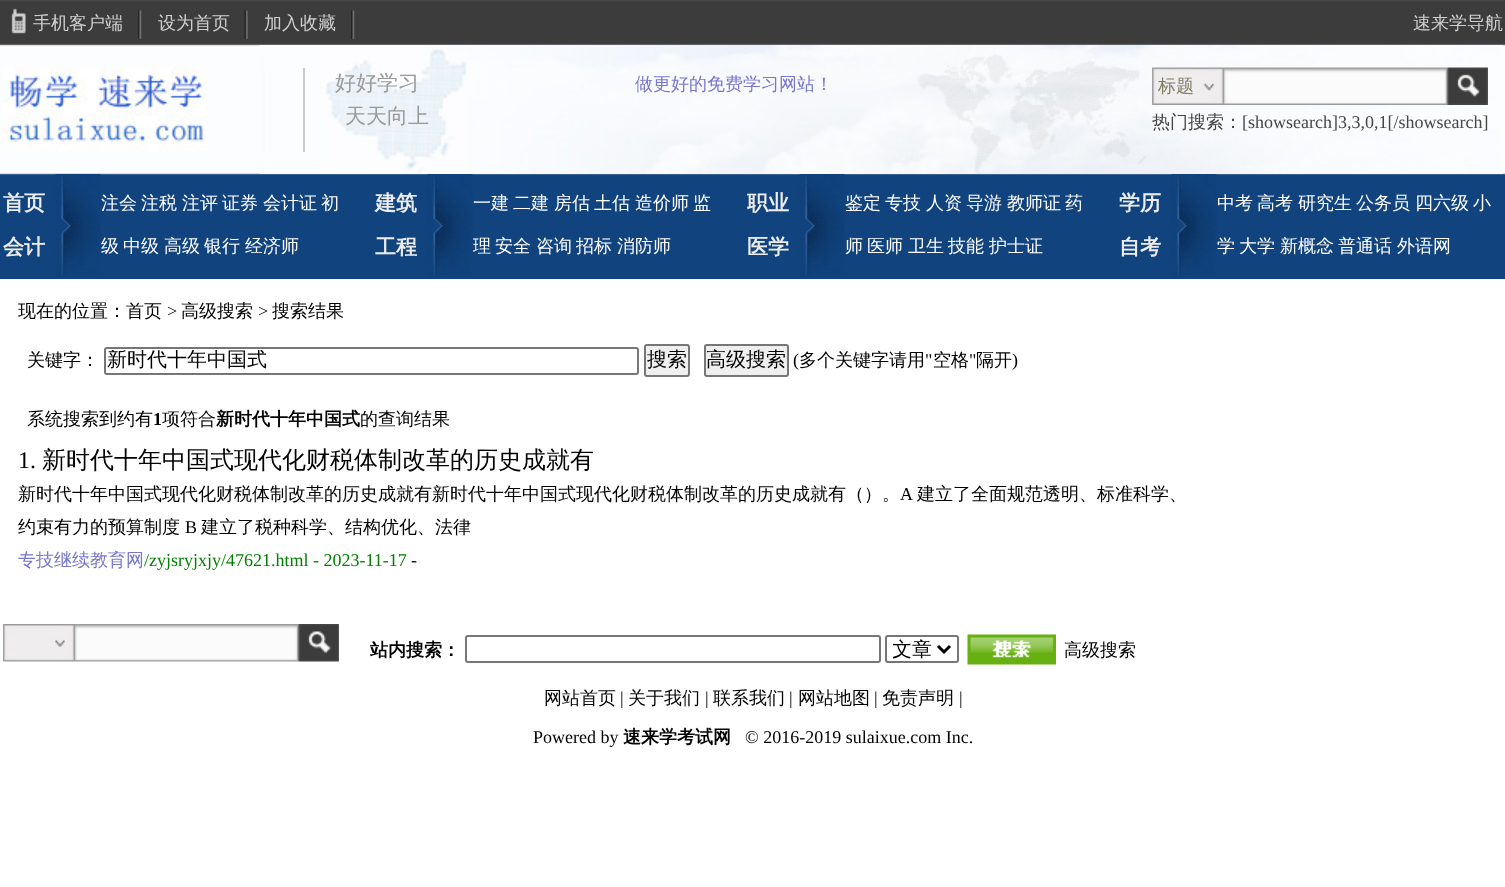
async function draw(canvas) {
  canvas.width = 1505
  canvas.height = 887
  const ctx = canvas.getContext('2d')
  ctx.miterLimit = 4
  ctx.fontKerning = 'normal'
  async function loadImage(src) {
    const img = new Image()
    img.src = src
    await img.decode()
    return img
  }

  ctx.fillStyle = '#fff'
  ctx.fillRect(0, 0, 1505, 887)
  ctx.drawImage(await loadImage('image0.png'), 0, 0, 1505, 279)
  ctx.drawImage(await loadImage('image1.png'), 11, 8, 15, 26)
  ctx.font = '500 18px WenQuanYi Zen Hei'
  ctx.fillStyle = '#d0d0d0'
  ctx.fillText('手机客户端', 33, 29)
  ctx.drawImage(await loadImage('image2.png'), 138, 10, 4, 29)
  ctx.fillText('设为首页', 158, 29)
  ctx.drawImage(await loadImage('image3.png'), 244, 10, 4, 29)
  ctx.fillText('加入收藏', 264, 29)
  ctx.drawImage(await loadImage('image4.png'), 351, 10, 4, 29)
  ctx.fillText('速来学导航', 1413, 29)
  ctx.drawImage(await loadImage('image5.png'), 259, 45, 1244, 129)
  ctx.drawImage(await loadImage('image6.png'), 3, 67, 204, 85)
  ctx.fillStyle = '#ccc'
  ctx.fillRect(303, 68, 2, 84)
  ctx.font = '500 21px WenQuanYi Zen Hei'
  ctx.fillStyle = '#999'
  ctx.fillText('好好学习', 335, 90)
  ctx.fillText('天天向上', 345, 123)
  ctx.font = '500 18px WenQuanYi Zen Hei'
  ctx.fillStyle = '#77c'
  ctx.fillText('做更好的免费学习网站！', 635, 90)
  ctx.drawImage(await loadImage('image7.png'), 1152, 67, 336, 38)
  ctx.fillStyle = '#807a62'
  ctx.fillText('标题', 1158, 92)
  ctx.fillStyle = '#464646'
  ctx.fillText('热门搜索：', 1152, 128)
  ctx.font = '18px Liberation Serif'
  ctx.fillText('[showsearch]3,3,0,1[/showsearch]', 1242, 128)
  ctx.drawImage(await loadImage('image8.png'), 55, 174, 46, 102)
  ctx.font = 'bold 21px WenQuanYi Zen Hei'
  ctx.fillStyle = '#ececec'
  ctx.fillText('首页', 3, 210)
  ctx.fillText('会计', 3, 254)
  ctx.font = '500 18px WenQuanYi Zen Hei'
  ctx.fillStyle = '#fff'
  ctx.fillText('注会', 101, 209)
  ctx.fillText('注税', 141, 209)
  ctx.fillText('注评', 182, 209)
  ctx.fillText('证券', 222, 209)
  ctx.fillText('会计证', 263, 209)
  ctx.fillText('初', 321, 209)
  ctx.fillText('级', 101, 252)
  ctx.fillText('中级', 123, 252)
  ctx.fillText('高级', 164, 252)
  ctx.fillText('银行', 204, 252)
  ctx.fillText('经济师', 245, 252)
  ctx.drawImage(await loadImage('image9.png'), 427, 174, 46, 102)
  ctx.font = 'bold 21px WenQuanYi Zen Hei'
  ctx.fillStyle = '#ececec'
  ctx.fillText('建筑', 375, 210)
  ctx.fillText('工程', 375, 254)
  ctx.font = '500 18px WenQuanYi Zen Hei'
  ctx.fillStyle = '#fff'
  ctx.fillText('一建', 473, 209)
  ctx.fillText('二建', 513, 209)
  ctx.fillText('房估', 554, 209)
  ctx.fillText('土估', 594, 209)
  ctx.fillText('造价师', 635, 209)
  ctx.fillText('监', 693, 209)
  ctx.fillText('理', 473, 252)
  ctx.fillText('安全', 495, 252)
  ctx.fillText('咨询', 536, 252)
  ctx.fillText('招标', 576, 252)
  ctx.fillText('消防师', 617, 252)
  ctx.drawImage(await loadImage('image8.png'), 799, 174, 46, 102)
  ctx.font = 'bold 21px WenQuanYi Zen Hei'
  ctx.fillStyle = '#ececec'
  ctx.fillText('职业', 747, 210)
  ctx.fillText('医学', 747, 254)
  ctx.font = '500 18px WenQuanYi Zen Hei'
  ctx.fillStyle = '#fff'
  ctx.fillText('鉴定', 845, 209)
  ctx.fillText('专技', 885, 209)
  ctx.fillText('人资', 926, 209)
  ctx.fillText('导游', 966, 209)
  ctx.fillText('教师证', 1007, 209)
  ctx.fillText('药', 1065, 209)
  ctx.fillText('师', 845, 252)
  ctx.fillText('医师', 867, 252)
  ctx.fillText('卫生', 908, 252)
  ctx.fillText('技能', 948, 252)
  ctx.fillText('护士证', 989, 252)
  ctx.drawImage(await loadImage('image9.png'), 1171, 174, 46, 102)
  ctx.font = 'bold 21px WenQuanYi Zen Hei'
  ctx.fillStyle = '#ececec'
  ctx.fillText('学历', 1119, 210)
  ctx.fillText('自考', 1119, 254)
  ctx.font = '500 18px WenQuanYi Zen Hei'
  ctx.fillStyle = '#fff'
  ctx.fillText('中考', 1217, 209)
  ctx.fillText('高考', 1257, 209)
  ctx.fillText('研究生', 1298, 209)
  ctx.fillText('公务员', 1356, 209)
  ctx.fillText('四六级', 1415, 209)
  ctx.fillText('小', 1473, 209)
  ctx.fillText('学', 1217, 252)
  ctx.fillText('大学', 1239, 252)
  ctx.fillText('新概念', 1280, 252)
  ctx.fillText('普通话', 1338, 252)
  ctx.fillText('外语网', 1397, 252)
  ctx.fillStyle = '#000'
  ctx.fillText('现在的位置：首页', 18, 317)
  ctx.font = '18px Liberation Serif'
  ctx.fillText('>', 167, 317)
  ctx.font = '500 18px WenQuanYi Zen Hei'
  ctx.fillText('高级搜索', 181, 317)
  ctx.font = '18px Liberation Serif'
  ctx.fillText('>', 258, 317)
  ctx.font = '500 18px WenQuanYi Zen Hei'
  ctx.fillText('搜索结果', 272, 317)
  ctx.fillText('关键字：', 27, 366)
  ctx.beginPath()
  ctx.roundRect(105, 348, 533, 26, 2)
  ctx.strokeStyle = '#767676'
  ctx.lineWidth = 2
  ctx.stroke()
  ctx.save()
  ctx.beginPath()
  ctx.rect(107, 350, 529, 22)
  ctx.clip()
  ctx.font = '500 20px WenQuanYi Zen Hei'
  ctx.fillText('新时代十年中国式', 107, 366)
  ctx.restore()
  ctx.fillStyle = '#efefef'
  ctx.beginPath()
  ctx.roundRect(645, 345, 44, 31, 2)
  ctx.fill()
  ctx.stroke()
  ctx.font = '500 20px WenQuanYi Zen Hei'
  ctx.fillStyle = '#000'
  ctx.fillText('搜索', 647, 366)
  ctx.fillStyle = '#efefef'
  ctx.beginPath()
  ctx.roundRect(705, 345, 83, 31, 2)
  ctx.fill()
  ctx.stroke()
  ctx.fillStyle = '#000'
  ctx.fillText('高级搜索', 706, 366)
  ctx.font = '18px Liberation Serif'
  ctx.fillText('(', 793, 366)
  ctx.font = '500 18px WenQuanYi Zen Hei'
  ctx.fillText('多个关键字请用', 799, 366)
  ctx.font = '18px Liberation Serif'
  ctx.fillText('"', 925, 366)
  ctx.font = '500 18px WenQuanYi Zen Hei'
  ctx.fillText('空格', 933, 366)
  ctx.font = '18px Liberation Serif'
  ctx.fillText('"', 969, 366)
  ctx.font = '500 18px WenQuanYi Zen Hei'
  ctx.fillText('隔开', 976, 366)
  ctx.font = '18px Liberation Serif'
  ctx.fillText(')', 1012, 366)
  ctx.font = '500 18px WenQuanYi Zen Hei'
  ctx.fillText('系统搜索到约有', 27, 425)
  ctx.font = 'bold 18px Liberation Serif'
  ctx.fillText('1', 153, 425)
  ctx.font = '500 18px WenQuanYi Zen Hei'
  ctx.fillText('项符合', 162, 425)
  ctx.font = 'bold 18px WenQuanYi Zen Hei'
  ctx.fillText('新时代十年中国式', 216, 425)
  ctx.font = '500 18px WenQuanYi Zen Hei'
  ctx.fillText('的查询结果', 360, 425)
  ctx.font = '24px Liberation Serif'
  ctx.fillText('1.', 18, 468)
  ctx.font = '500 24px WenQuanYi Zen Hei'
  ctx.fillText('新时代十年中国式现代化财税体制改革的历史成就有', 42, 468)
  ctx.font = '500 18px WenQuanYi Zen Hei'
  ctx.fillText('新时代十年中国式现代化财税体制改革的历史成就有新时代十年中国式现代化财税体制改革的历史成就有（）。', 18, 500)
  ctx.font = '18px Liberation Serif'
  ctx.fillText('A', 900, 500)
  ctx.font = '500 18px WenQuanYi Zen Hei'
  ctx.fillText('建立了全面规范透明、标准科学、', 917, 500)
  ctx.fillText('约束有力的预算制度', 18, 533)
  ctx.font = '18px Liberation Serif'
  ctx.fillText('B', 185, 533)
  ctx.font = '500 18px WenQuanYi Zen Hei'
  ctx.fillText('建立了税种科学、结构优化、法律', 201, 533)
  ctx.fillStyle = '#77c'
  ctx.fillText('专技继续教育网', 18, 566)
  ctx.font = '18px Liberation Serif'
  ctx.fillStyle = '#008000'
  ctx.fillText('/zyjsryjxjy/47621.html - 2023-11-17', 144, 566)
  ctx.fillStyle = '#000'
  ctx.fillText('-', 411, 566)
  ctx.drawImage(await loadImage('image10.png'), 3, 624, 336, 38)
  ctx.font = 'bold 18px WenQuanYi Zen Hei'
  ctx.fillText('站内搜索：', 370, 656)
  ctx.beginPath()
  ctx.roundRect(466, 636, 414, 26, 2)
  ctx.stroke()
  ctx.beginPath()
  ctx.roundRect(886, 636, 72, 26, 2)
  ctx.stroke()
  ctx.beginPath()
  ctx.moveTo(938, 646)
  ctx.lineTo(944, 652)
  ctx.lineTo(950, 646)
  ctx.strokeStyle = '#000'
  ctx.lineWidth = 3
  ctx.stroke()
  ctx.save()
  ctx.beginPath()
  ctx.rect(893, 636, 40, 26)
  ctx.clip()
  ctx.font = '500 20px WenQuanYi Zen Hei'
  ctx.fillText('文章', 892, 656)
  ctx.restore()
  ctx.drawImage(await loadImage('image11.png'), 967, 634, 89, 31)
  ctx.font = '500 18px WenQuanYi Zen Hei'
  ctx.fillText('高级搜索', 1064, 656)
  ctx.fillText('网站首页', 544, 704)
  ctx.font = '18px Liberation Serif'
  ctx.fillText('|', 620, 704)
  ctx.font = '500 18px WenQuanYi Zen Hei'
  ctx.fillText('关于我们', 628, 704)
  ctx.font = '18px Liberation Serif'
  ctx.fillText('|', 705, 704)
  ctx.font = '500 18px WenQuanYi Zen Hei'
  ctx.fillText('联系我们', 713, 704)
  ctx.font = '18px Liberation Serif'
  ctx.fillText('|', 789, 704)
  ctx.font = '500 18px WenQuanYi Zen Hei'
  ctx.fillText('网站地图', 798, 704)
  ctx.font = '18px Liberation Serif'
  ctx.fillText('|', 874, 704)
  ctx.font = '500 18px WenQuanYi Zen Hei'
  ctx.fillText('免责声明', 882, 704)
  ctx.font = '18px Liberation Serif'
  ctx.fillText('|', 959, 704)
  ctx.fillText('Powered by', 533, 743)
  ctx.font = 'bold 18px WenQuanYi Zen Hei'
  ctx.fillText('速来学考试网', 623, 743)
  ctx.font = '18px Liberation Serif'
  ctx.fillText('© 2016-2019 sulaixue.com Inc.', 745, 743)
}

draw(document.querySelector('canvas'))
